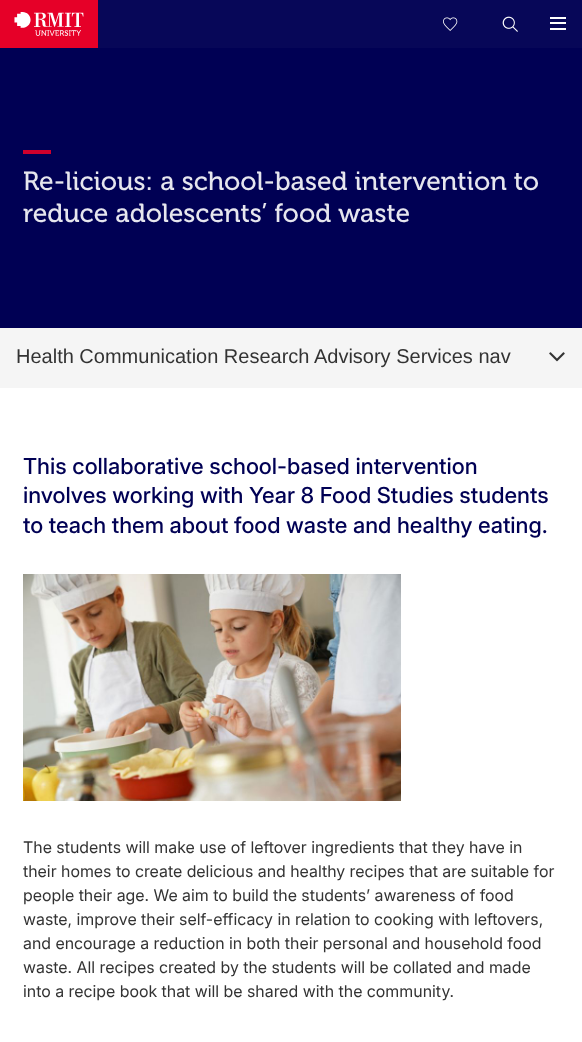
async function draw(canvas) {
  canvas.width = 582
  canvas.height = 1042
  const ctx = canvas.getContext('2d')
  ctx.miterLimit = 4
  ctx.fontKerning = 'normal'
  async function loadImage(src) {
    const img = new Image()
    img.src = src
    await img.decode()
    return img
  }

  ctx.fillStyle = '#fff'
  ctx.fillRect(0, 0, 582, 1042)
  ctx.fillStyle = '#070758'
  ctx.fillRect(98, 0, 484, 48)
  ctx.fillStyle = '#e60028'
  ctx.fillRect(0, 0, 98, 48)
  ctx.drawImage(await loadImage('image0.png'), 14, 12, 70, 24)
  ctx.drawImage(await loadImage('image1.png'), 443, 17, 15, 14)
  ctx.drawImage(await loadImage('image2.png'), 502, 16, 16, 16)
  ctx.fillStyle = '#fff'
  ctx.fillRect(550, 17, 16, 2)
  ctx.fillRect(550, 22, 16, 2)
  ctx.fillRect(550, 28, 16, 2)
  ctx.fillStyle = '#000054'
  ctx.fillRect(0, 48, 582, 280)
  ctx.fillStyle = '#cf002c'
  ctx.fillRect(23, 150, 28, 4)
  ctx.font = '26.4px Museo'
  ctx.fillStyle = '#e6e6ee'
  ctx.fillText('Re-licious: a school-based intervention to', 23, 190)
  ctx.fillText('reduce adolescents’ food waste', 23, 222)
  ctx.fillStyle = '#f5f5f5'
  ctx.fillRect(0, 328, 582, 60)
  ctx.font = '20px Liberation Sans'
  ctx.fillStyle = '#333'
  ctx.fillText('Health Communication Research Advisory Services nav', 16, 363)
  ctx.drawImage(await loadImage('image3.png'), 549, 352, 16, 10)
  ctx.font = '500 22.15px Inter'
  ctx.fillStyle = '#000054'
  ctx.fillText('This collaborative school-based intervention', 23, 474)
  ctx.fillText('involves working with Year 8 Food Studies students', 23, 503)
  ctx.fillText('to teach them about food waste and healthy eating.', 23, 533)
  ctx.drawImage(await loadImage('image4.png'), 23, 574, 378, 227)
  ctx.font = '16px Inter'
  ctx.fillStyle = '#333'
  ctx.fillText('The students will make use of leftover ingredients that they have in', 23, 853)
  ctx.fillText('their homes to create delicious and healthy recipes that are suitable for', 23, 877)
  ctx.fillText('people their age. We aim to build the students’ awareness of food', 23, 901)
  ctx.fillText('waste, improve their self-efficacy in relation to cooking with leftovers,', 23, 925)
  ctx.fillText('and encourage a reduction in both their personal and household food', 23, 949)
  ctx.fillText('waste. All recipes created by the students will be collated and made', 23, 973)
  ctx.fillText('into a recipe book that will be shared with the community.', 23, 997)
}

draw(document.querySelector('canvas'))
